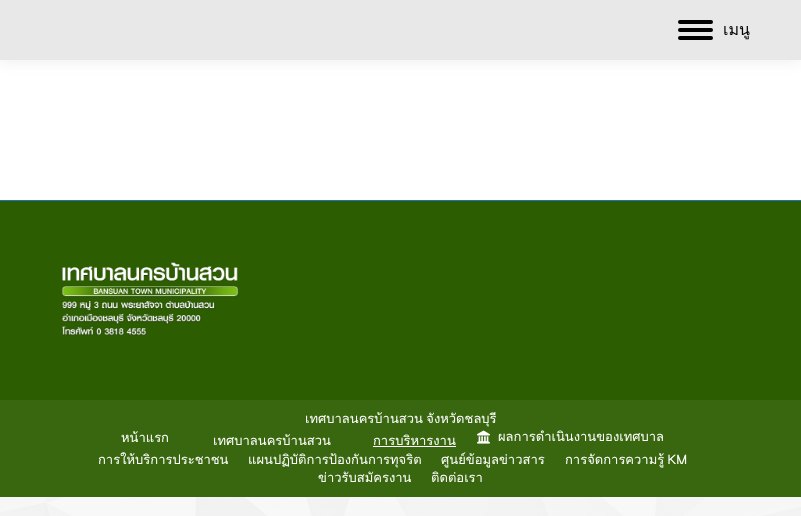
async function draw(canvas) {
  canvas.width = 801
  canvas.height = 516
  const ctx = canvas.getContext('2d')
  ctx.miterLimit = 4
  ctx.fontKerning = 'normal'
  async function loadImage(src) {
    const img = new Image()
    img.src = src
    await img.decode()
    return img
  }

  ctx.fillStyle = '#f7f7f7'
  ctx.fillRect(0, 0, 801, 516)
  ctx.drawImage(await loadImage('image0.png'), 0, 497, 801, 19)
  ctx.fillStyle = '#fff'
  ctx.fillRect(0, 60, 801, 140)
  ctx.fillStyle = '#00000012'
  ctx.filter = 'blur(7.5px)'
  ctx.beginPath()
  ctx.rect(-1, -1, 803, 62)
  ctx.fill()
  ctx.filter = 'none'
  ctx.fillStyle = '#e8e8e8'
  ctx.fillRect(0, 0, 801, 60)
  ctx.fillStyle = '#000'
  ctx.beginPath()
  ctx.roundRect(678, 20, 35, 4, 2)
  ctx.fill()
  ctx.beginPath()
  ctx.roundRect(678, 28, 35, 4, 2)
  ctx.fill()
  ctx.beginPath()
  ctx.roundRect(678, 36, 35, 4, 2)
  ctx.fill()
  ctx.font = '16px Loma'
  ctx.fillText('เมนู', 723, 35)
  ctx.fillStyle = '#2c5d00'
  ctx.fillRect(0, 201, 801, 199)
  ctx.fillStyle = '#1e73be'
  ctx.fillRect(0, 200, 801, 1)
  ctx.drawImage(await loadImage('image1.png'), 61, 262, 178, 74)
  ctx.fillStyle = '#39670f'
  ctx.fillRect(0, 400, 801, 97)
  ctx.wordSpacing = '-1px'
  ctx.font = '13px Loma'
  ctx.fillStyle = '#fff'
  ctx.fillText('เทศบาลนครบ้านสวน จังหวัดชลบุรี', 305, 423)
  ctx.wordSpacing = '0px'
  ctx.fillText('หน้าแรก', 121, 442)
  ctx.fillText('เทศบาลนครบ้านสวน', 213, 445)
  ctx.fillText('การบริหารงาน', 373, 445)
  ctx.fillRect(373, 446, 83, 1)
  ctx.drawImage(await loadImage('image2.png'), 477, 430, 13, 14)
  ctx.fillText('ผลการดำเนินงานของเทศบาล', 498, 441)
  ctx.fillText('การให้บริการประชาชน', 98, 464)
  ctx.fillText('แผนปฏิบัติการป้องกันการทุจริต', 248, 464)
  ctx.fillText('ศูนย์ข้อมูลข่าวสาร', 441, 464)
  ctx.wordSpacing = '-1px'
  ctx.fillText('การจัดการความรู้ KM', 565, 464)
  ctx.wordSpacing = '0px'
  ctx.fillText('ข่าวรับสมัครงาน', 318, 482)
  ctx.fillText('ติดต่อเรา', 431, 482)
}

draw(document.querySelector('canvas'))
